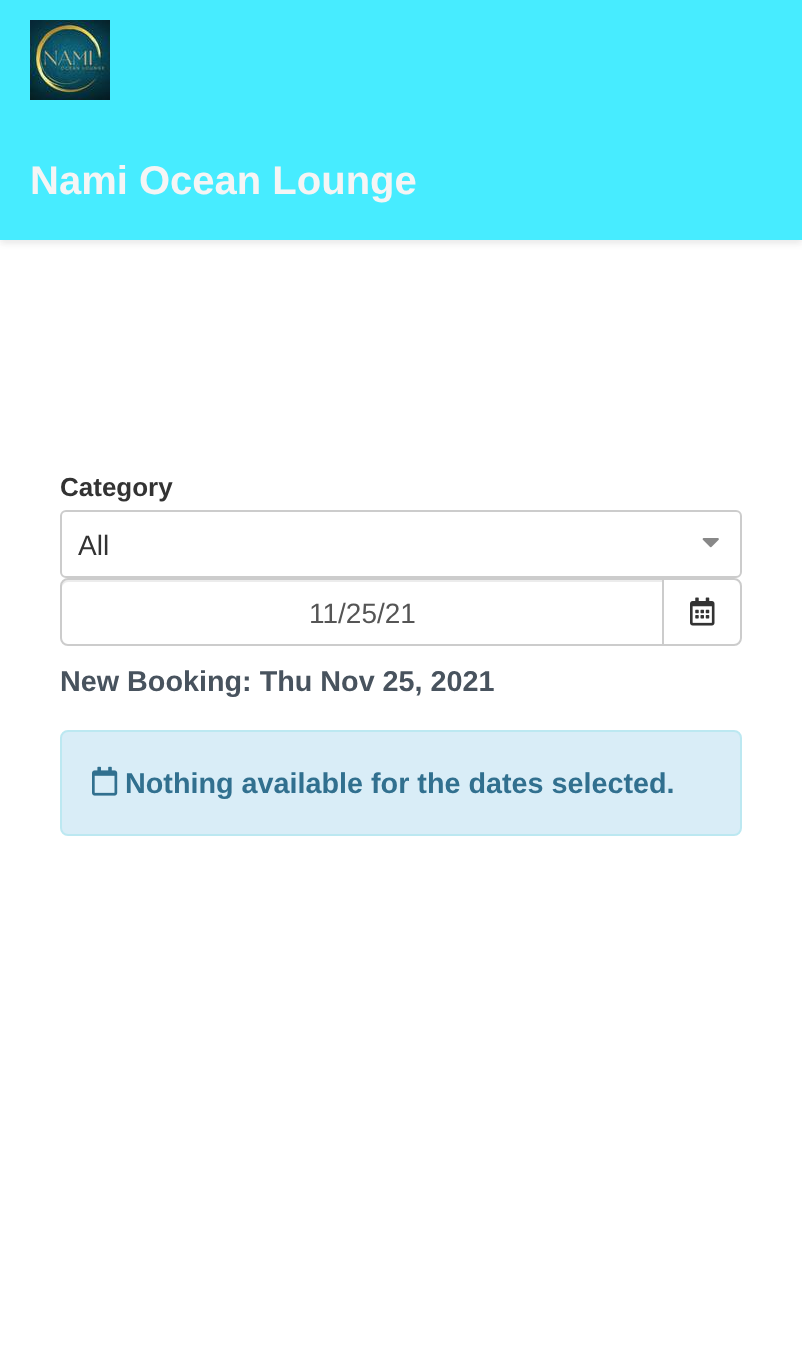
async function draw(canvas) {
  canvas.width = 802
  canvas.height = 1347
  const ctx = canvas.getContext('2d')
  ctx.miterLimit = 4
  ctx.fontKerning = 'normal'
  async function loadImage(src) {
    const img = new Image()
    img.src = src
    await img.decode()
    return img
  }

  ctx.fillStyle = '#fff'
  ctx.fillRect(0, 0, 802, 1347)
  ctx.fillStyle = '#3232321a'
  ctx.filter = 'blur(3px)'
  ctx.beginPath()
  ctx.rect(0, 4, 802, 240)
  ctx.fill()
  ctx.filter = 'none'
  ctx.fillStyle = '#47ecff'
  ctx.fillRect(0, 0, 802, 240)
  ctx.drawImage(await loadImage('image0.png'), 30, 20, 80, 80)
  ctx.font = 'bold 40px Liberation Sans'
  ctx.fillStyle = '#f5f5f5'
  ctx.fillText('Nami Ocean Lounge', 30, 194)
  ctx.font = 'bold 26px Liberation Sans'
  ctx.fillStyle = '#333'
  ctx.fillText('Category', 60, 496)
  ctx.beginPath()
  ctx.roundRect(61, 511, 680, 66, 5)
  ctx.strokeStyle = '#ccc'
  ctx.lineWidth = 2
  ctx.stroke()
  ctx.font = '28px Liberation Sans'
  ctx.fillText('All', 78, 555)
  ctx.drawImage(await loadImage('image1.png'), 702, 538, 17, 10)
  ctx.fillStyle = '#ececec'
  ctx.beginPath()
  ctx.moveTo(68, 582)
  ctx.lineTo(662, 582)
  ctx.lineTo(662, 580)
  ctx.lineTo(68, 580)
  ctx.bezierCurveTo(63, 580, 62, 584, 62, 588)
  ctx.bezierCurveTo(62, 585, 65, 582, 68, 582)
  ctx.closePath()
  ctx.fill()
  ctx.beginPath()
  ctx.roundRect(61, 579, 602, 66, [7, 0, 0, 7])
  ctx.stroke()
  ctx.fillStyle = '#555'
  ctx.fillText('11/25/21', 309, 623)
  ctx.fillStyle = '#fff'
  ctx.beginPath()
  ctx.roundRect(663, 579, 78, 66, [0, 7, 7, 0])
  ctx.fill()
  ctx.stroke()
  ctx.drawImage(await loadImage('image2.png'), 690, 597, 25, 29)
  ctx.font = 'bold 28.75px Liberation Sans'
  ctx.fillStyle = '#48535e'
  ctx.fillText('New Booking: Thu Nov 25, 2021', 60, 691)
  ctx.fillStyle = '#d9edf7'
  ctx.beginPath()
  ctx.roundRect(61, 731, 680, 104, 7)
  ctx.fill()
  ctx.strokeStyle = '#bce8f1'
  ctx.stroke()
  ctx.drawImage(await loadImage('image3.png'), 92, 766, 26, 30)
  ctx.fillStyle = '#31708f'
  ctx.fillText('Nothing available for the dates selected.', 125, 793)
}

draw(document.querySelector('canvas'))
